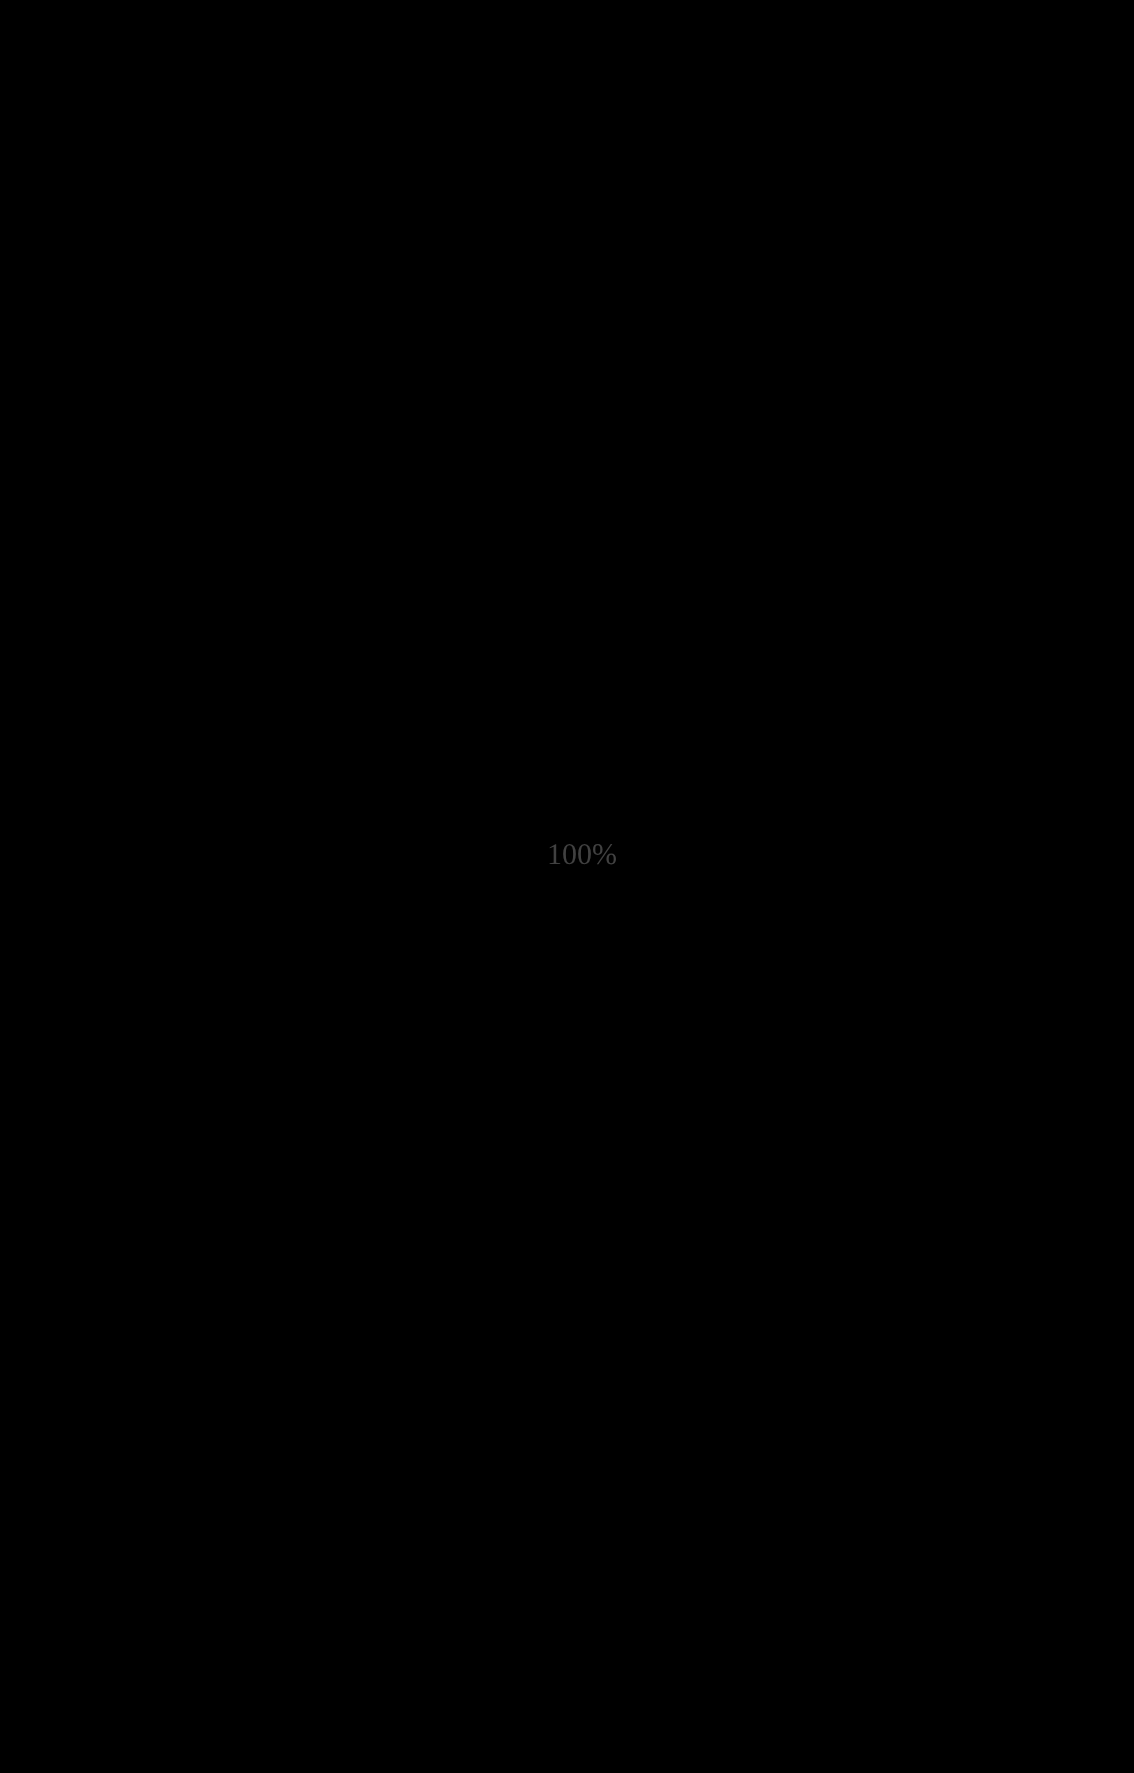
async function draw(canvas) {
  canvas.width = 1134
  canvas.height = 1773
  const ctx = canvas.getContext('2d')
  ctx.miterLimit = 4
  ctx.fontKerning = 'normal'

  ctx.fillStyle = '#000'
  ctx.fillRect(0, 0, 1134, 1773)
  ctx.font = '30px Liberation Serif'
  ctx.fillStyle = '#414141'
  ctx.fillText('100%', 547, 864)
}

draw(document.querySelector('canvas'))
